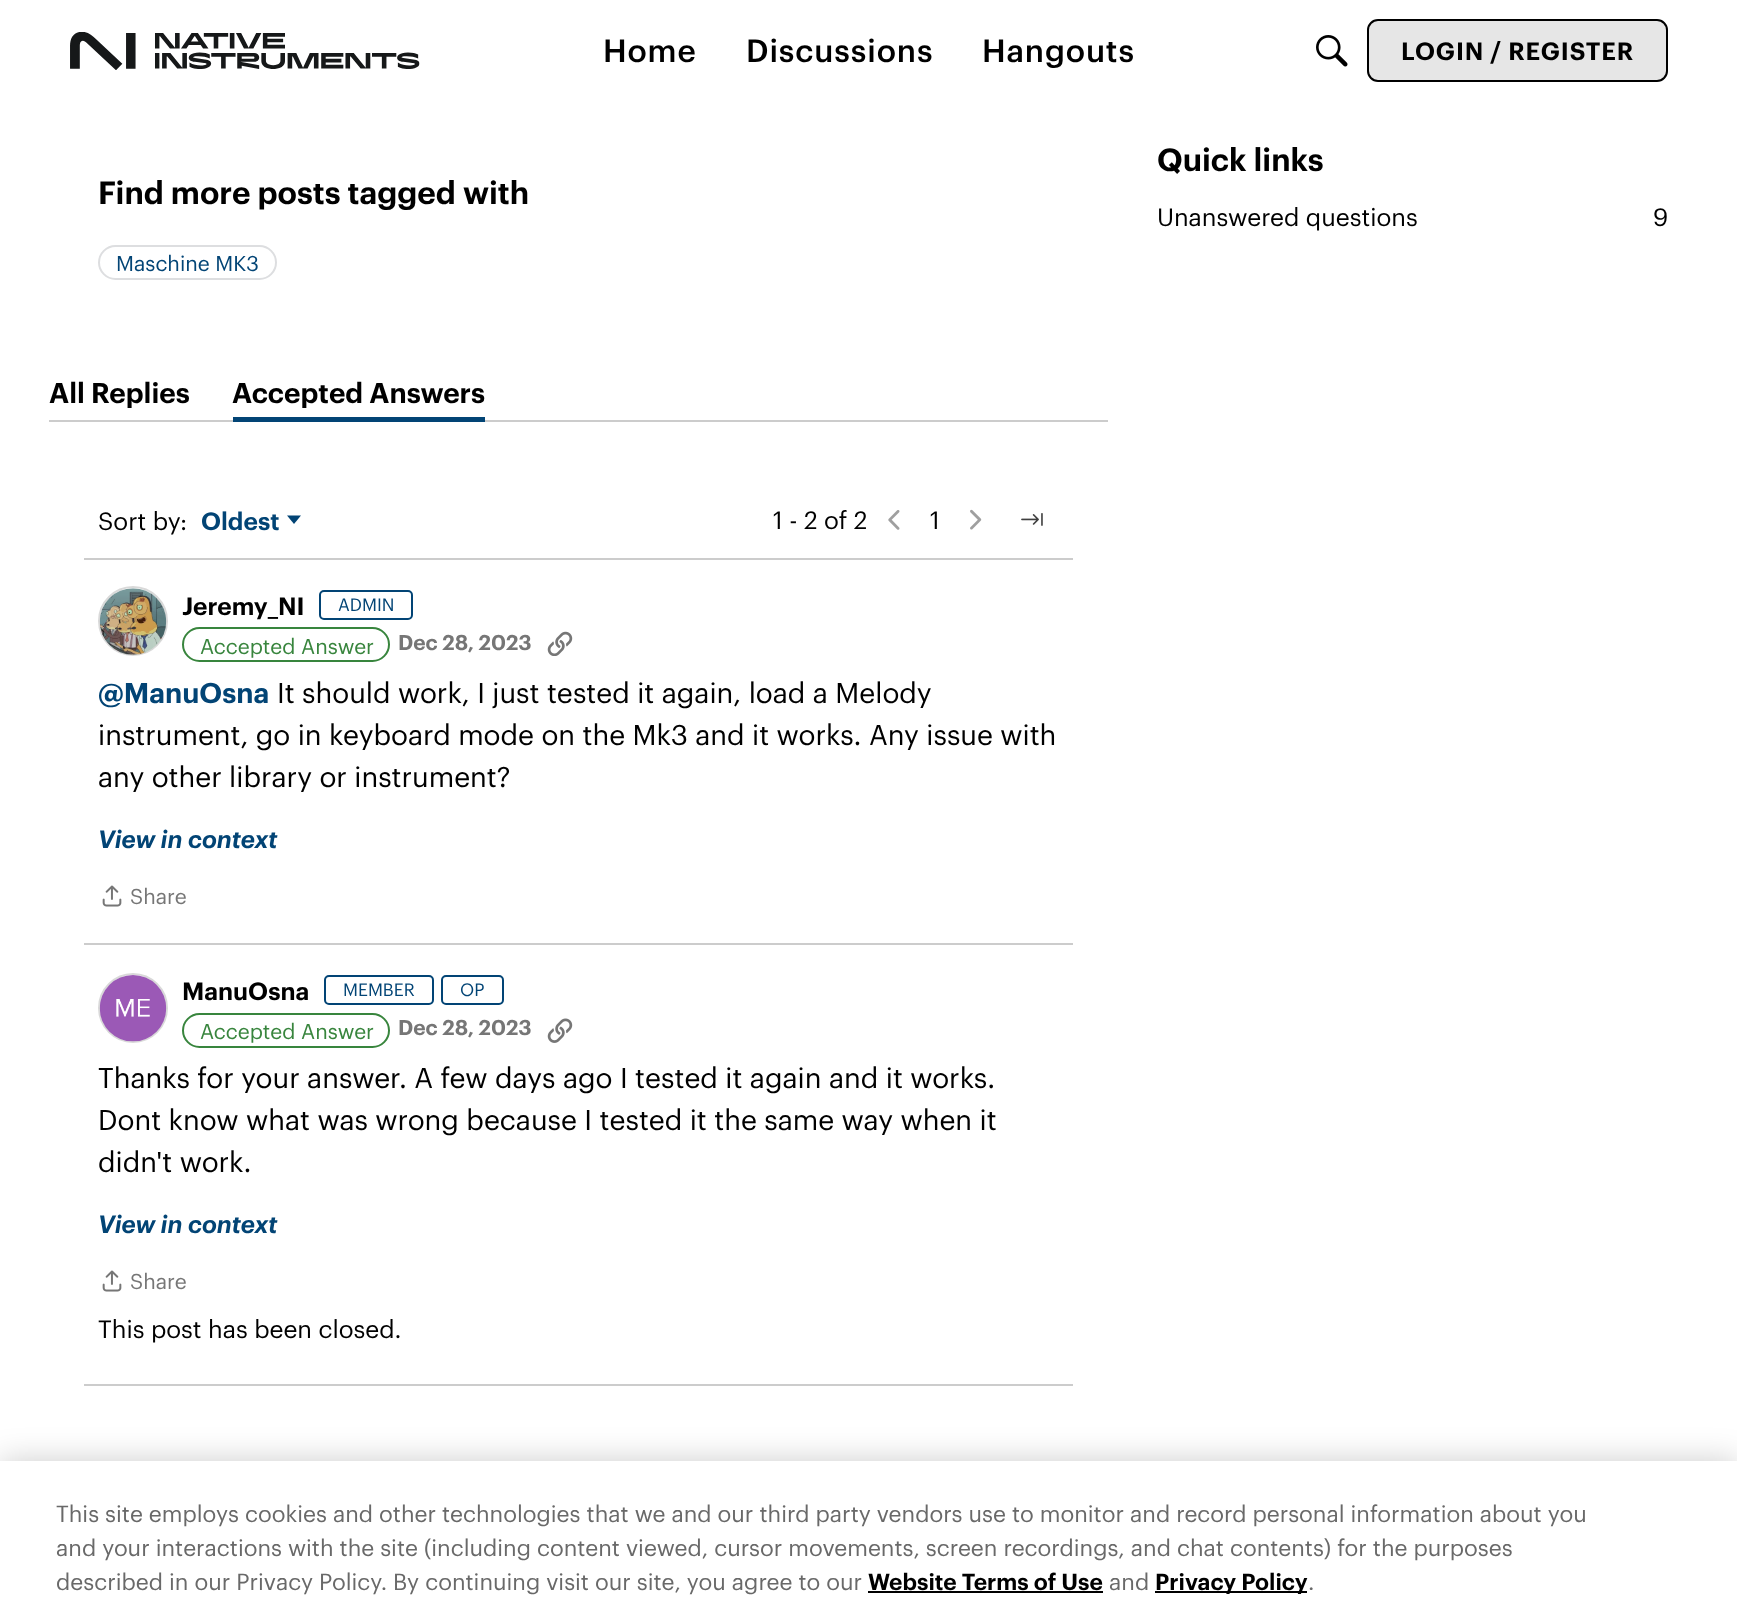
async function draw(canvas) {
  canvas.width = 1737
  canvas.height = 1617
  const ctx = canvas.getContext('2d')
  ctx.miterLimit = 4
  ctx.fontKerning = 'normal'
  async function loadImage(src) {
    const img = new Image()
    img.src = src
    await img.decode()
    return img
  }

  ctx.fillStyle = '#fff'
  ctx.fillRect(0, 0, 1737, 1617)
  ctx.drawImage(await loadImage('image0.png'), 70, 32, 350, 38)
  ctx.letterSpacing = '0.9px'
  ctx.font = '500 31.5px Graphik'
  ctx.fillStyle = '#000'
  ctx.fillText('Home', 603, 62)
  ctx.fillText('Discussions', 746, 62)
  ctx.fillText('Hangouts', 982, 62)
  ctx.drawImage(await loadImage('image1.png'), 1316, 35, 32, 32)
  ctx.fillStyle = '#e6e6e6'
  ctx.beginPath()
  ctx.roundRect(1368, 20, 299, 61, 10)
  ctx.fill()
  ctx.strokeStyle = '#000'
  ctx.lineWidth = 2
  ctx.stroke()
  ctx.font = '600 24.5px Graphik'
  ctx.fillStyle = '#000'
  ctx.fillText('LOGIN / REGISTER', 1401, 60)
  ctx.letterSpacing = '0px'
  ctx.font = '600 31.5px Graphik'
  ctx.fillText('Find more posts tagged with', 98, 204)
  ctx.beginPath()
  ctx.roundRect(99, 246, 177, 33, 16.5)
  ctx.strokeStyle = '#dddee0'
  ctx.stroke()
  ctx.font = '21px Graphik'
  ctx.fillStyle = '#024475'
  ctx.fillText('Maschine MK3', 116, 271)
  ctx.fillStyle = '#ccc'
  ctx.fillRect(49, 420, 1059, 2)
  ctx.font = '600 28px Graphik'
  ctx.fillStyle = '#000'
  ctx.fillText('All Replies', 49, 403)
  ctx.fillText('Accepted Answers', 232, 403)
  ctx.fillStyle = '#024475'
  ctx.fillRect(233, 417, 252, 5)
  ctx.font = '24.5px Graphik'
  ctx.fillStyle = '#000'
  ctx.fillText('Sort by', 98, 530)
  ctx.fillText(':', 180, 530)
  ctx.font = '600 24.5px Graphik'
  ctx.fillStyle = '#024475'
  ctx.fillText('Oldest', 201, 530)
  ctx.beginPath()
  ctx.moveTo(287, 515.5)
  ctx.lineTo(301, 515.5)
  ctx.lineTo(294, 524)
  ctx.closePath()
  ctx.fill()
  ctx.font = '24.5px Graphik'
  ctx.fillStyle = '#000'
  ctx.fillText('1 - 2 of 2', 773, 529)
  ctx.drawImage(await loadImage('image2.png'), 888, 510, 12, 20)
  ctx.fillText('1', 930, 529)
  ctx.drawImage(await loadImage('image3.png'), 970, 509, 12, 21)
  ctx.drawImage(await loadImage('image4.png'), 1021, 513, 22, 13)
  ctx.fillStyle = '#ccc'
  ctx.fillRect(84, 558, 989, 2)
  ctx.beginPath()
  ctx.arc(133, 621, 34, 0, 2 * Math.PI)
  ctx.strokeStyle = '#d9d9d9'
  ctx.stroke()
  ctx.drawImage(await loadImage('image5.png'), 99, 588, 68, 67)
  ctx.font = '600 24.5px Graphik'
  ctx.fillStyle = '#000'
  ctx.fillText('Jeremy_NI', 182, 615)
  ctx.beginPath()
  ctx.roundRect(320, 591, 92, 28, 4)
  ctx.strokeStyle = '#024475'
  ctx.stroke()
  ctx.font = '17.5px Graphik'
  ctx.fillStyle = '#024475'
  ctx.fillText('ADMIN', 338, 611)
  ctx.beginPath()
  ctx.roundRect(183, 628, 206, 33, 16.5)
  ctx.strokeStyle = '#38853d'
  ctx.stroke()
  ctx.font = '21px Graphik'
  ctx.fillStyle = '#38853d'
  ctx.fillText('Accepted Answer', 200, 654)
  ctx.font = '600 21px Graphik'
  ctx.fillStyle = '#767676'
  ctx.fillText('Dec 28, 2023', 398, 650)
  ctx.drawImage(await loadImage('image6.png'), 547, 631, 26, 25)
  ctx.font = '600 28px Graphik'
  ctx.fillStyle = '#024475'
  ctx.fillText('@ManuOsna', 98, 703)
  ctx.font = '28px Graphik'
  ctx.fillStyle = '#000'
  ctx.fillText('It should work, I just tested it again, load a Melody', 277, 703)
  ctx.fillText('instrument, go in keyboard mode on the Mk3 and it works. Any issue with', 98, 745)
  ctx.fillText('any other library or instrument?', 98, 787)
  ctx.font = 'italic 600 24.5px Graphik'
  ctx.fillStyle = '#024475'
  ctx.fillText('View in context', 98, 848)
  ctx.drawImage(await loadImage('image7.png'), 102, 885, 20, 22)
  ctx.font = '21px Graphik'
  ctx.fillStyle = '#767676'
  ctx.fillText('Share', 130, 904)
  ctx.fillStyle = '#ccc'
  ctx.fillRect(84, 943, 989, 2)
  ctx.beginPath()
  ctx.arc(133, 1008, 34, 0, 2 * Math.PI)
  ctx.strokeStyle = '#d9d9d9'
  ctx.stroke()
  ctx.drawImage(await loadImage('image8.png'), 99, 975, 68, 67)
  ctx.font = '600 24.5px Graphik'
  ctx.fillStyle = '#000'
  ctx.fillText('ManuOsna', 182, 1000)
  ctx.beginPath()
  ctx.roundRect(325, 976, 108, 28, 4)
  ctx.strokeStyle = '#024475'
  ctx.stroke()
  ctx.font = '17.5px Graphik'
  ctx.fillStyle = '#024475'
  ctx.fillText('MEMBER', 343, 996)
  ctx.beginPath()
  ctx.roundRect(442, 976, 61, 28, 4)
  ctx.stroke()
  ctx.fillText('OP', 460, 996)
  ctx.beginPath()
  ctx.roundRect(183, 1014, 206, 33, 16.5)
  ctx.strokeStyle = '#38853d'
  ctx.stroke()
  ctx.font = '21px Graphik'
  ctx.fillStyle = '#38853d'
  ctx.fillText('Accepted Answer', 200, 1039)
  ctx.font = '600 21px Graphik'
  ctx.fillStyle = '#767676'
  ctx.fillText('Dec 28, 2023', 398, 1035)
  ctx.drawImage(await loadImage('image9.png'), 547, 1018, 26, 25)
  ctx.font = '28px Graphik'
  ctx.fillStyle = '#000'
  ctx.fillText('Thanks for your answer. A few days ago I tested it again and it works.', 98, 1088)
  ctx.fillText('Dont know what was wrong because I tested it the same way when it', 98, 1130)
  ctx.fillText('didn\'t work.', 98, 1172)
  ctx.font = 'italic 600 24.5px Graphik'
  ctx.fillStyle = '#024475'
  ctx.fillText('View in context', 98, 1233)
  ctx.drawImage(await loadImage('image7.png'), 102, 1270, 20, 22)
  ctx.font = '21px Graphik'
  ctx.fillStyle = '#767676'
  ctx.fillText('Share', 130, 1289)
  ctx.font = '24.5px Graphik'
  ctx.fillStyle = '#000'
  ctx.fillText('This post has been closed.', 98, 1338)
  ctx.fillStyle = '#ccc'
  ctx.fillRect(84, 1384, 989, 2)
  ctx.font = '600 31.5px Graphik'
  ctx.fillStyle = '#000'
  ctx.fillText('Quick links', 1157, 171)
  ctx.font = '24.5px Graphik'
  ctx.fillText('Unanswered questions', 1157, 226)
  ctx.fillText('9', 1653, 226)
  ctx.fillStyle = '#00000033'
  ctx.filter = 'blur(16px)'
  ctx.beginPath()
  ctx.rect(0, 1461, 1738, 156)
  ctx.fill()
  ctx.filter = 'none'
  ctx.fillStyle = '#fff'
  ctx.fillRect(0, 1461, 1737, 156)
  ctx.font = '22.75px Graphik'
  ctx.fillStyle = '#696969'
  ctx.fillText('This site employs cookies and other technologies that we and our third party vendors use to monitor and record personal information about you', 56, 1522)
  ctx.fillText('and your interactions with the site (including content viewed, cursor movements, screen recordings, and chat contents) for the purposes', 56, 1556)
  ctx.fillText('described in our Privacy Policy. By continuing visit our site, you agree to our', 56, 1590)
  ctx.font = '600 22.75px Graphik'
  ctx.fillStyle = '#000'
  ctx.fillText('Website Terms of Use', 868, 1590)
  ctx.fillRect(868, 1591, 235, 2)
  ctx.font = '22.75px Graphik'
  ctx.fillStyle = '#696969'
  ctx.fillText('and', 1109, 1590)
  ctx.fillStyle = '#000'
  ctx.fillRect(1155, 1591, 152, 2)
  ctx.font = '600 22.75px Graphik'
  ctx.fillText('Privacy Policy', 1155, 1590)
  ctx.font = '22.75px Graphik'
  ctx.fillStyle = '#696969'
  ctx.fillText('.', 1308, 1590)
}

draw(document.querySelector('canvas'))
